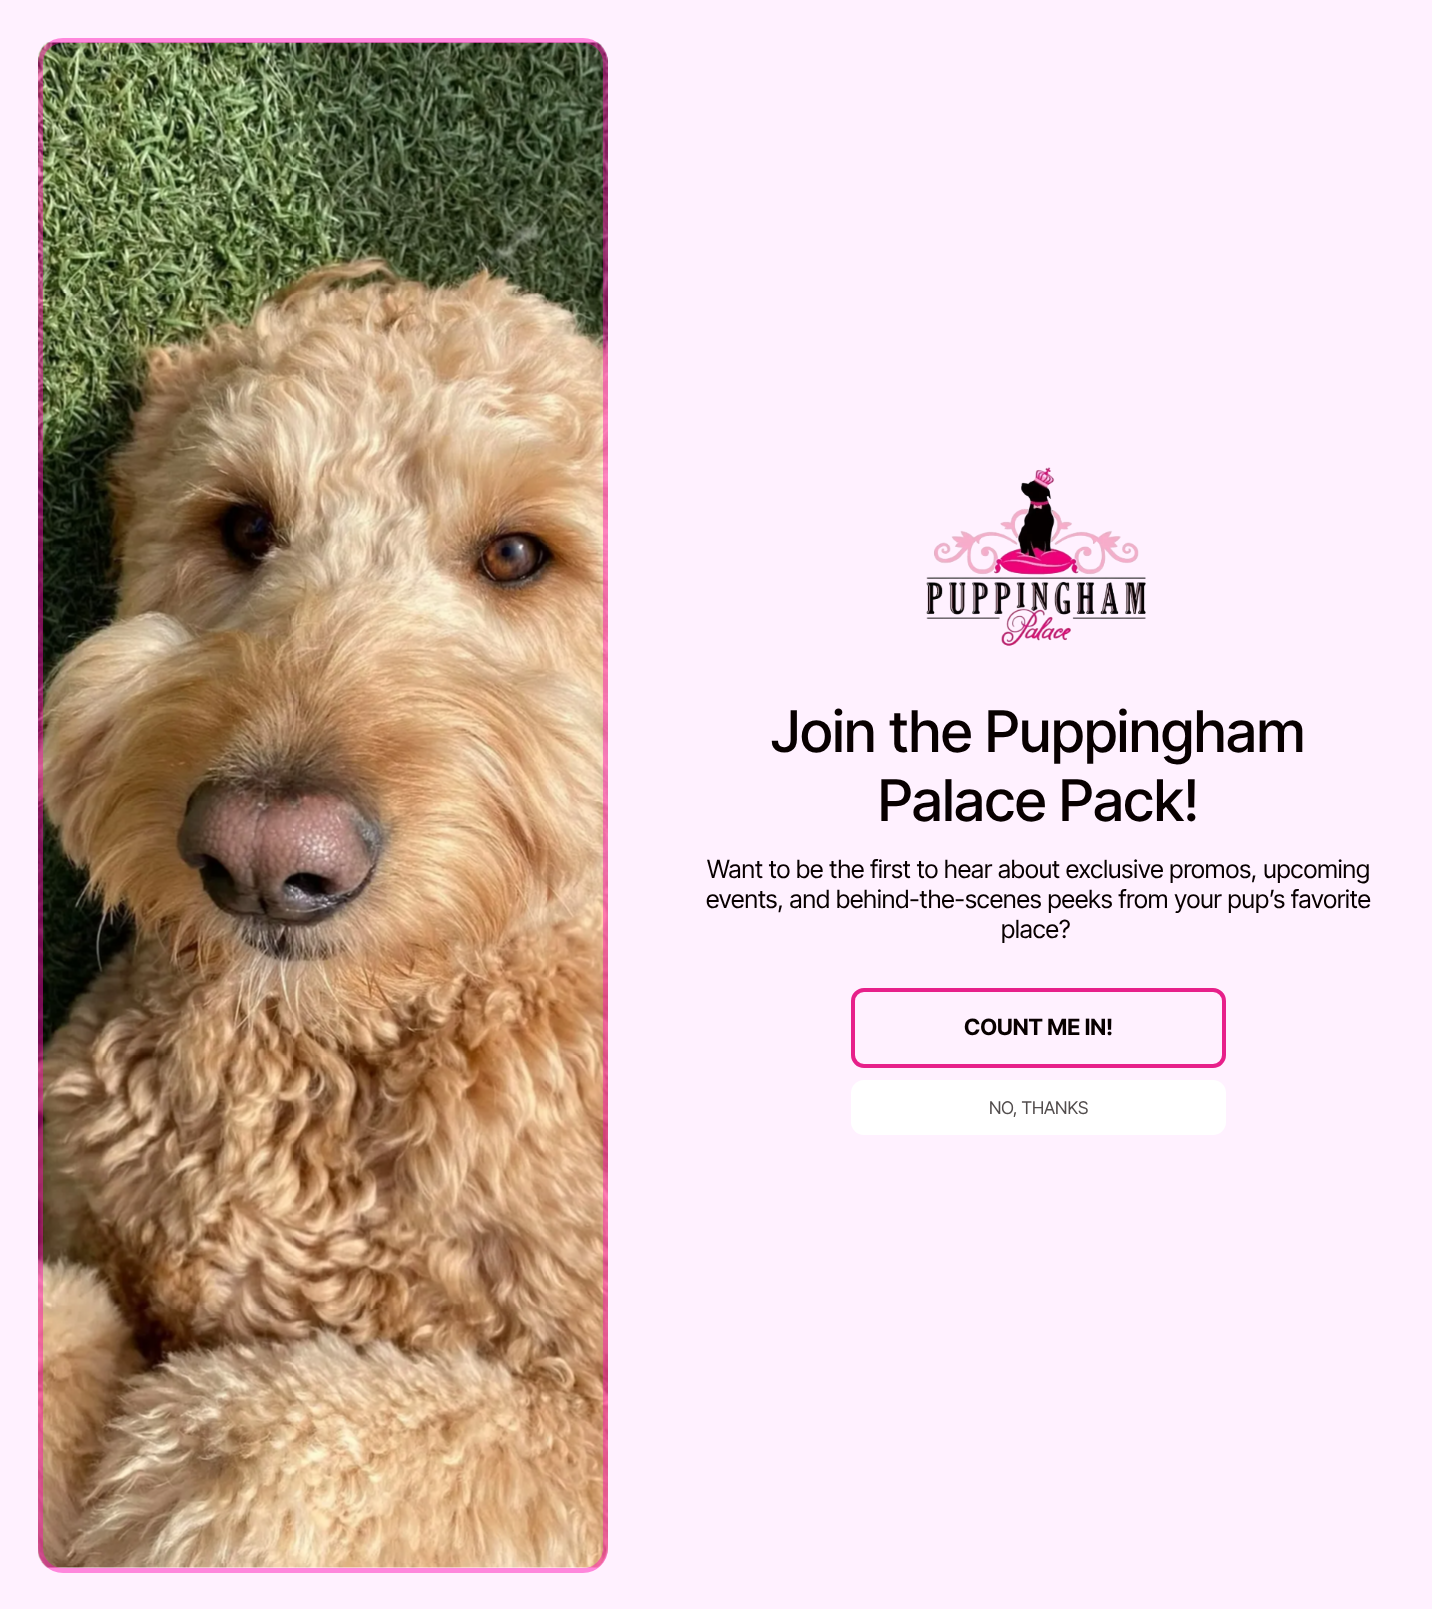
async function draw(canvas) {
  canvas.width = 1432
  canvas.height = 1609
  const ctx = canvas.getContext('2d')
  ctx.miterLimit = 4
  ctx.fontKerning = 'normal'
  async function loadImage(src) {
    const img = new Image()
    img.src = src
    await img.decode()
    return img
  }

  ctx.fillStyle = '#fff1ff'
  ctx.fillRect(0, 0, 1432, 1609)
  ctx.drawImage(await loadImage('image0.png'), 38, 42, 570, 1526)
  ctx.beginPath()
  ctx.roundRect(40.5, 40.5, 565, 1530, 22.5)
  ctx.strokeStyle = '#fe0bb375'
  ctx.lineWidth = 5
  ctx.stroke()
  ctx.drawImage(await loadImage('image1.png'), 926, 467, 220, 179)
  ctx.font = '500 57.5px Inter Tight'
  ctx.fillStyle = '#080000'
  ctx.fillText('Join the Puppingham', 771, 752)
  ctx.fillText('Palace Pack!', 878, 821)
  ctx.font = '25px Inter Tight'
  ctx.fillText('Want to be the first to hear about exclusive promos, upcoming', 707, 878)
  ctx.fillText('events, and behind-the-scenes peeks from your pup’s favorite', 706, 908)
  ctx.fillText('place?', 1001, 938)
  ctx.beginPath()
  ctx.roundRect(853, 990, 371, 76, 11)
  ctx.strokeStyle = '#e7208a'
  ctx.lineWidth = 4
  ctx.stroke()
  ctx.font = 'bold 22.5px Inter Tight'
  ctx.fillText('COUNT ME IN!', 964, 1035)
  ctx.fillStyle = '#fff'
  ctx.beginPath()
  ctx.roundRect(851, 1080, 375, 55, 13)
  ctx.fill()
  ctx.font = '17.5px Inter Tight'
  ctx.fillStyle = '#524d4d'
  ctx.fillText('NO, THANKS', 989, 1114)
}

draw(document.querySelector('canvas'))
